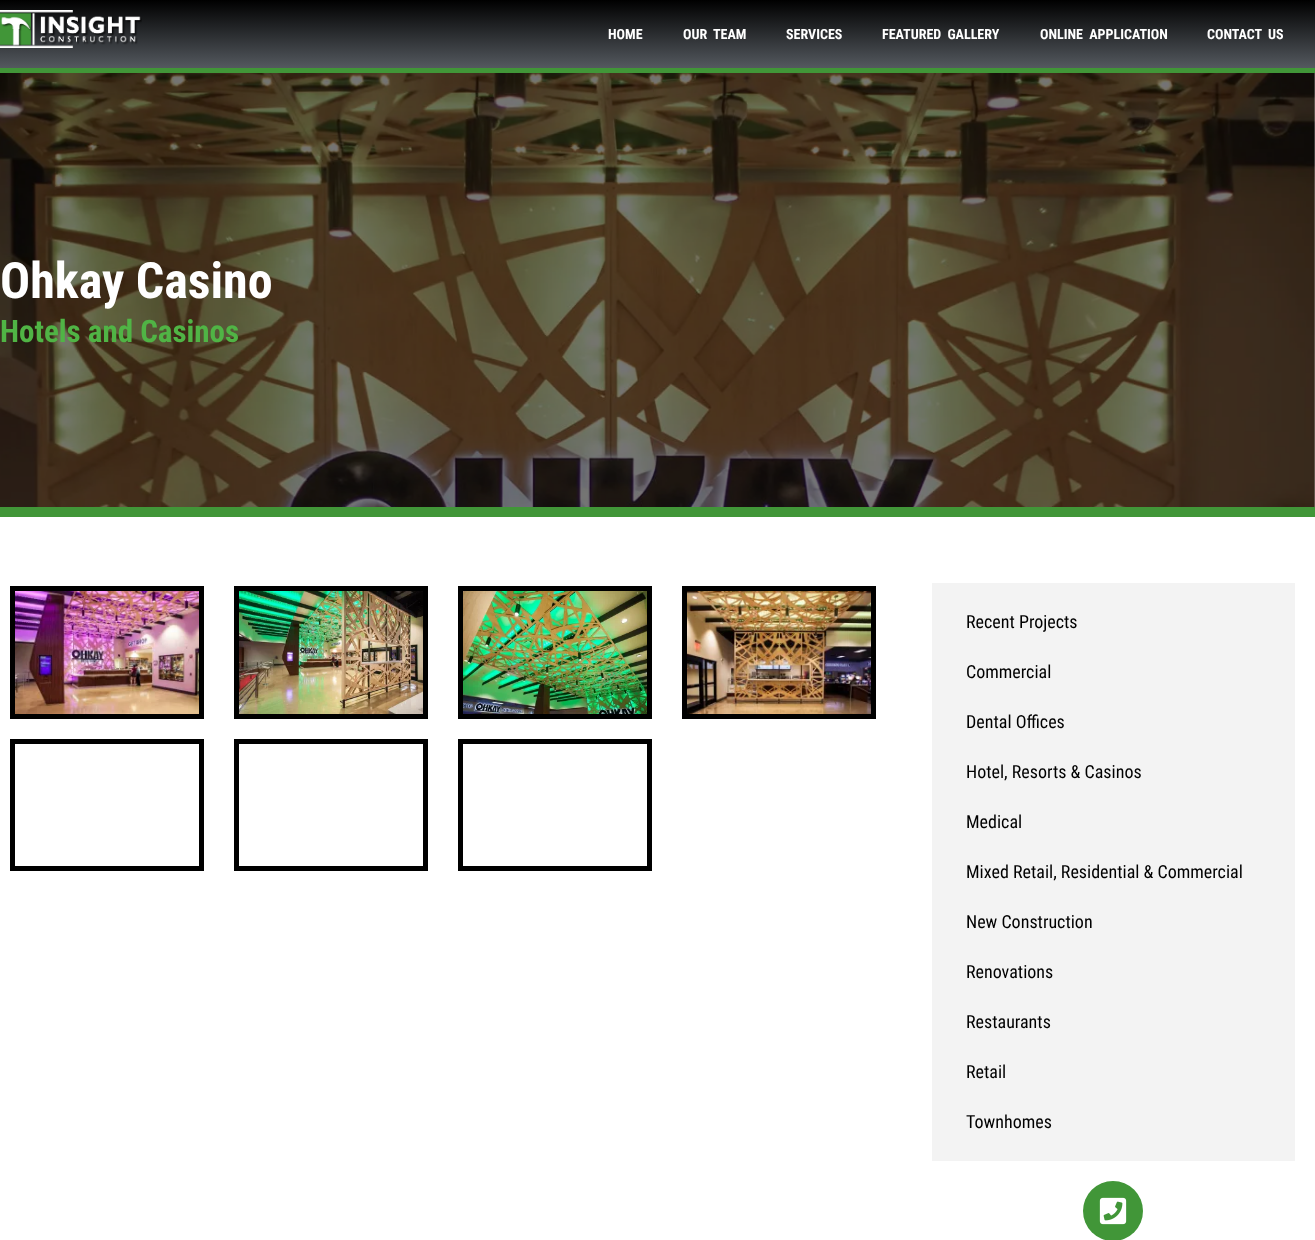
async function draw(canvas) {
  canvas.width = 1315
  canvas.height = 1240
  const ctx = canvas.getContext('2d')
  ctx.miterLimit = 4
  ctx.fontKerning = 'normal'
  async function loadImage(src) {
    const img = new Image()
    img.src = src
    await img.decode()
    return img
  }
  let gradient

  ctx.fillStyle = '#fff'
  ctx.fillRect(0, 0, 1315, 1240)
  gradient = ctx.createLinearGradient(658, 0, 658, 68)
  gradient.addColorStop(0, '#000')
  gradient.addColorStop(1, '#54595f')
  ctx.fillStyle = gradient
  ctx.fillRect(0, 0, 1315, 68)
  ctx.fillStyle = '#419638'
  ctx.fillRect(0, 68, 1315, 5)
  ctx.drawImage(await loadImage('image0.png'), 0, 10, 142, 38)
  ctx.font = 'bold 14px Roboto Condensed'
  ctx.fillStyle = '#fff'
  ctx.fillText('HOME', 608, 39)
  ctx.wordSpacing = '3px'
  ctx.fillText('OUR TEAM', 683, 39)
  ctx.wordSpacing = '0px'
  ctx.fillText('SERVICES', 786, 39)
  ctx.wordSpacing = '3px'
  ctx.fillText('FEATURED GALLERY', 882, 39)
  ctx.fillText('ONLINE APPLICATION', 1040, 39)
  ctx.fillText('CONTACT US', 1207, 39)
  ctx.drawImage(await loadImage('image1.png'), 0, 73, 1315, 434)
  ctx.wordSpacing = '0px'
  ctx.font = 'bold 50px Roboto Condensed'
  ctx.fillText('Ohkay Casino', 0, 298)
  ctx.font = 'bold 31px Roboto Condensed'
  ctx.fillStyle = '#50b445'
  ctx.fillText('Hotels and Casinos', 0, 342)
  ctx.fillStyle = '#419638'
  ctx.fillRect(0, 507, 1315, 10)
  ctx.strokeStyle = '#000'
  ctx.lineWidth = 5
  ctx.strokeRect(12.5, 588.5, 189, 128)
  ctx.drawImage(await loadImage('image2.png'), 15, 591, 184, 123)
  ctx.strokeRect(236.5, 588.5, 189, 128)
  ctx.drawImage(await loadImage('image3.png'), 239, 591, 184, 123)
  ctx.strokeRect(460.5, 588.5, 189, 128)
  ctx.drawImage(await loadImage('image4.png'), 463, 591, 184, 123)
  ctx.strokeRect(684.5, 588.5, 189, 128)
  ctx.drawImage(await loadImage('image5.png'), 687, 591, 184, 123)
  ctx.strokeRect(12.5, 741.5, 189, 127)
  ctx.strokeRect(236.5, 741.5, 189, 127)
  ctx.strokeRect(460.5, 741.5, 189, 127)
  ctx.fillStyle = '#f3f3f3'
  ctx.fillRect(932, 583, 363, 578)
  ctx.font = '18px Roboto Condensed'
  ctx.fillStyle = '#000'
  ctx.fillText('Recent Projects', 966, 628)
  ctx.fillText('Commercial', 966, 678)
  ctx.fillText('Dental Offices', 966, 728)
  ctx.fillText('Hotel, Resorts & Casinos', 966, 778)
  ctx.fillText('Medical', 966, 828)
  ctx.fillText('Mixed Retail, Residential & Commercial', 966, 878)
  ctx.fillText('New Construction', 966, 928)
  ctx.fillText('Renovations', 966, 978)
  ctx.fillText('Restaurants', 966, 1028)
  ctx.fillText('Retail', 966, 1078)
  ctx.fillText('Townhomes', 966, 1128)
  ctx.fillStyle = '#419638'
  ctx.beginPath()
  ctx.arc(1113, 1211, 30, 0, 2 * Math.PI)
  ctx.fill()
  ctx.drawImage(await loadImage('image6.png'), 1099, 1197, 28, 28)
}

draw(document.querySelector('canvas'))
